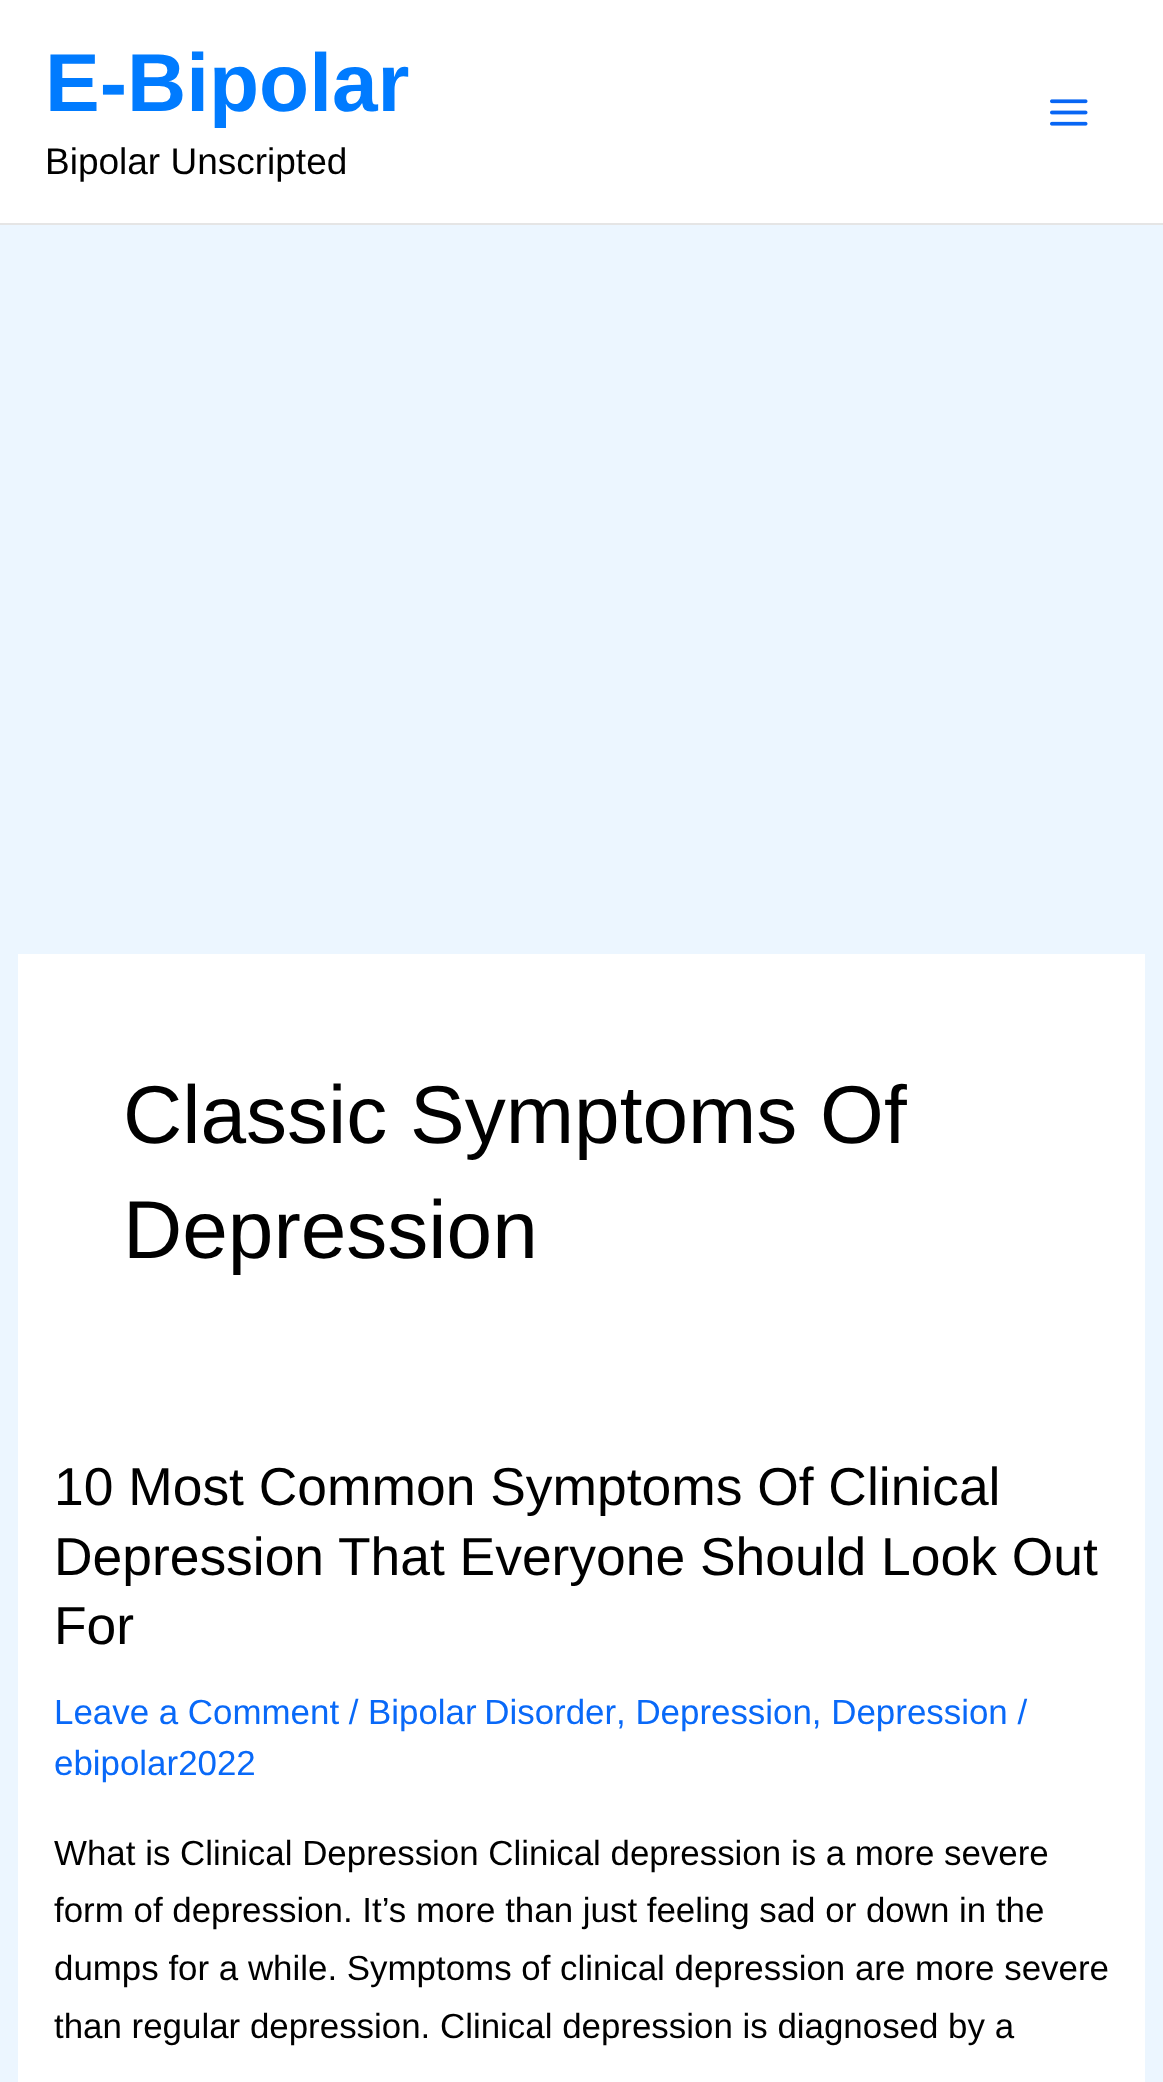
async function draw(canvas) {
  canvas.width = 1163
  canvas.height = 2082
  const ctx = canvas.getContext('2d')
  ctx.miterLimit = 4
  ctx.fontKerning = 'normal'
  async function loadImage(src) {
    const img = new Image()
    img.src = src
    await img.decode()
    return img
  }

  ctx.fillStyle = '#ecf6ff'
  ctx.fillRect(0, 0, 1163, 2082)
  ctx.fillStyle = '#fff'
  ctx.fillRect(0, 0, 1163, 223)
  ctx.fillStyle = '#e5e5e5'
  ctx.fillRect(0, 223, 1163, 2)
  ctx.font = 'bold 82px Liberation Sans'
  ctx.fillStyle = '#007bff'
  ctx.fillText('E-Bipolar', 45, 111)
  ctx.font = '37px Liberation Sans'
  ctx.fillStyle = '#000'
  ctx.fillText('Bipolar Unscripted', 45, 174)
  ctx.drawImage(await loadImage('image0.png'), 1050, 99, 38, 27)
  ctx.fillStyle = '#fff'
  ctx.fillRect(18, 954, 1127, 1128)
  ctx.font = '82px Liberation Sans'
  ctx.fillStyle = '#000'
  ctx.fillText('Classic Symptoms Of', 123, 1143)
  ctx.fillText('Depression', 123, 1258)
  ctx.font = '53.4px Liberation Sans'
  ctx.fillText('10 Most Common Symptoms Of Clinical', 54, 1505)
  ctx.fillText('Depression That Everyone Should Look Out', 54, 1575)
  ctx.fillText('For', 54, 1644)
  ctx.font = '34.9px Liberation Sans'
  ctx.fillStyle = '#0969f8'
  ctx.fillText('Leave a Comment /', 54, 1724)
  ctx.wordSpacing = '-2px'
  ctx.fillText('Bipolar Disorder', 368, 1724)
  ctx.wordSpacing = '0px'
  ctx.fillText(', Depression, Depression /', 616, 1724)
  ctx.fillText('ebipolar2022', 54, 1775)
  ctx.fillStyle = '#000'
  ctx.fillText('What is Clinical Depression Clinical depression is a more severe', 54, 1865)
  ctx.fillText('form of depression. It’s more than just feeling sad or down in the', 54, 1922)
  ctx.fillText('dumps for a while. Symptoms of clinical depression are more severe', 54, 1980)
  ctx.fillText('than regular depression. Clinical depression is diagnosed by a', 54, 2038)
}

draw(document.querySelector('canvas'))
